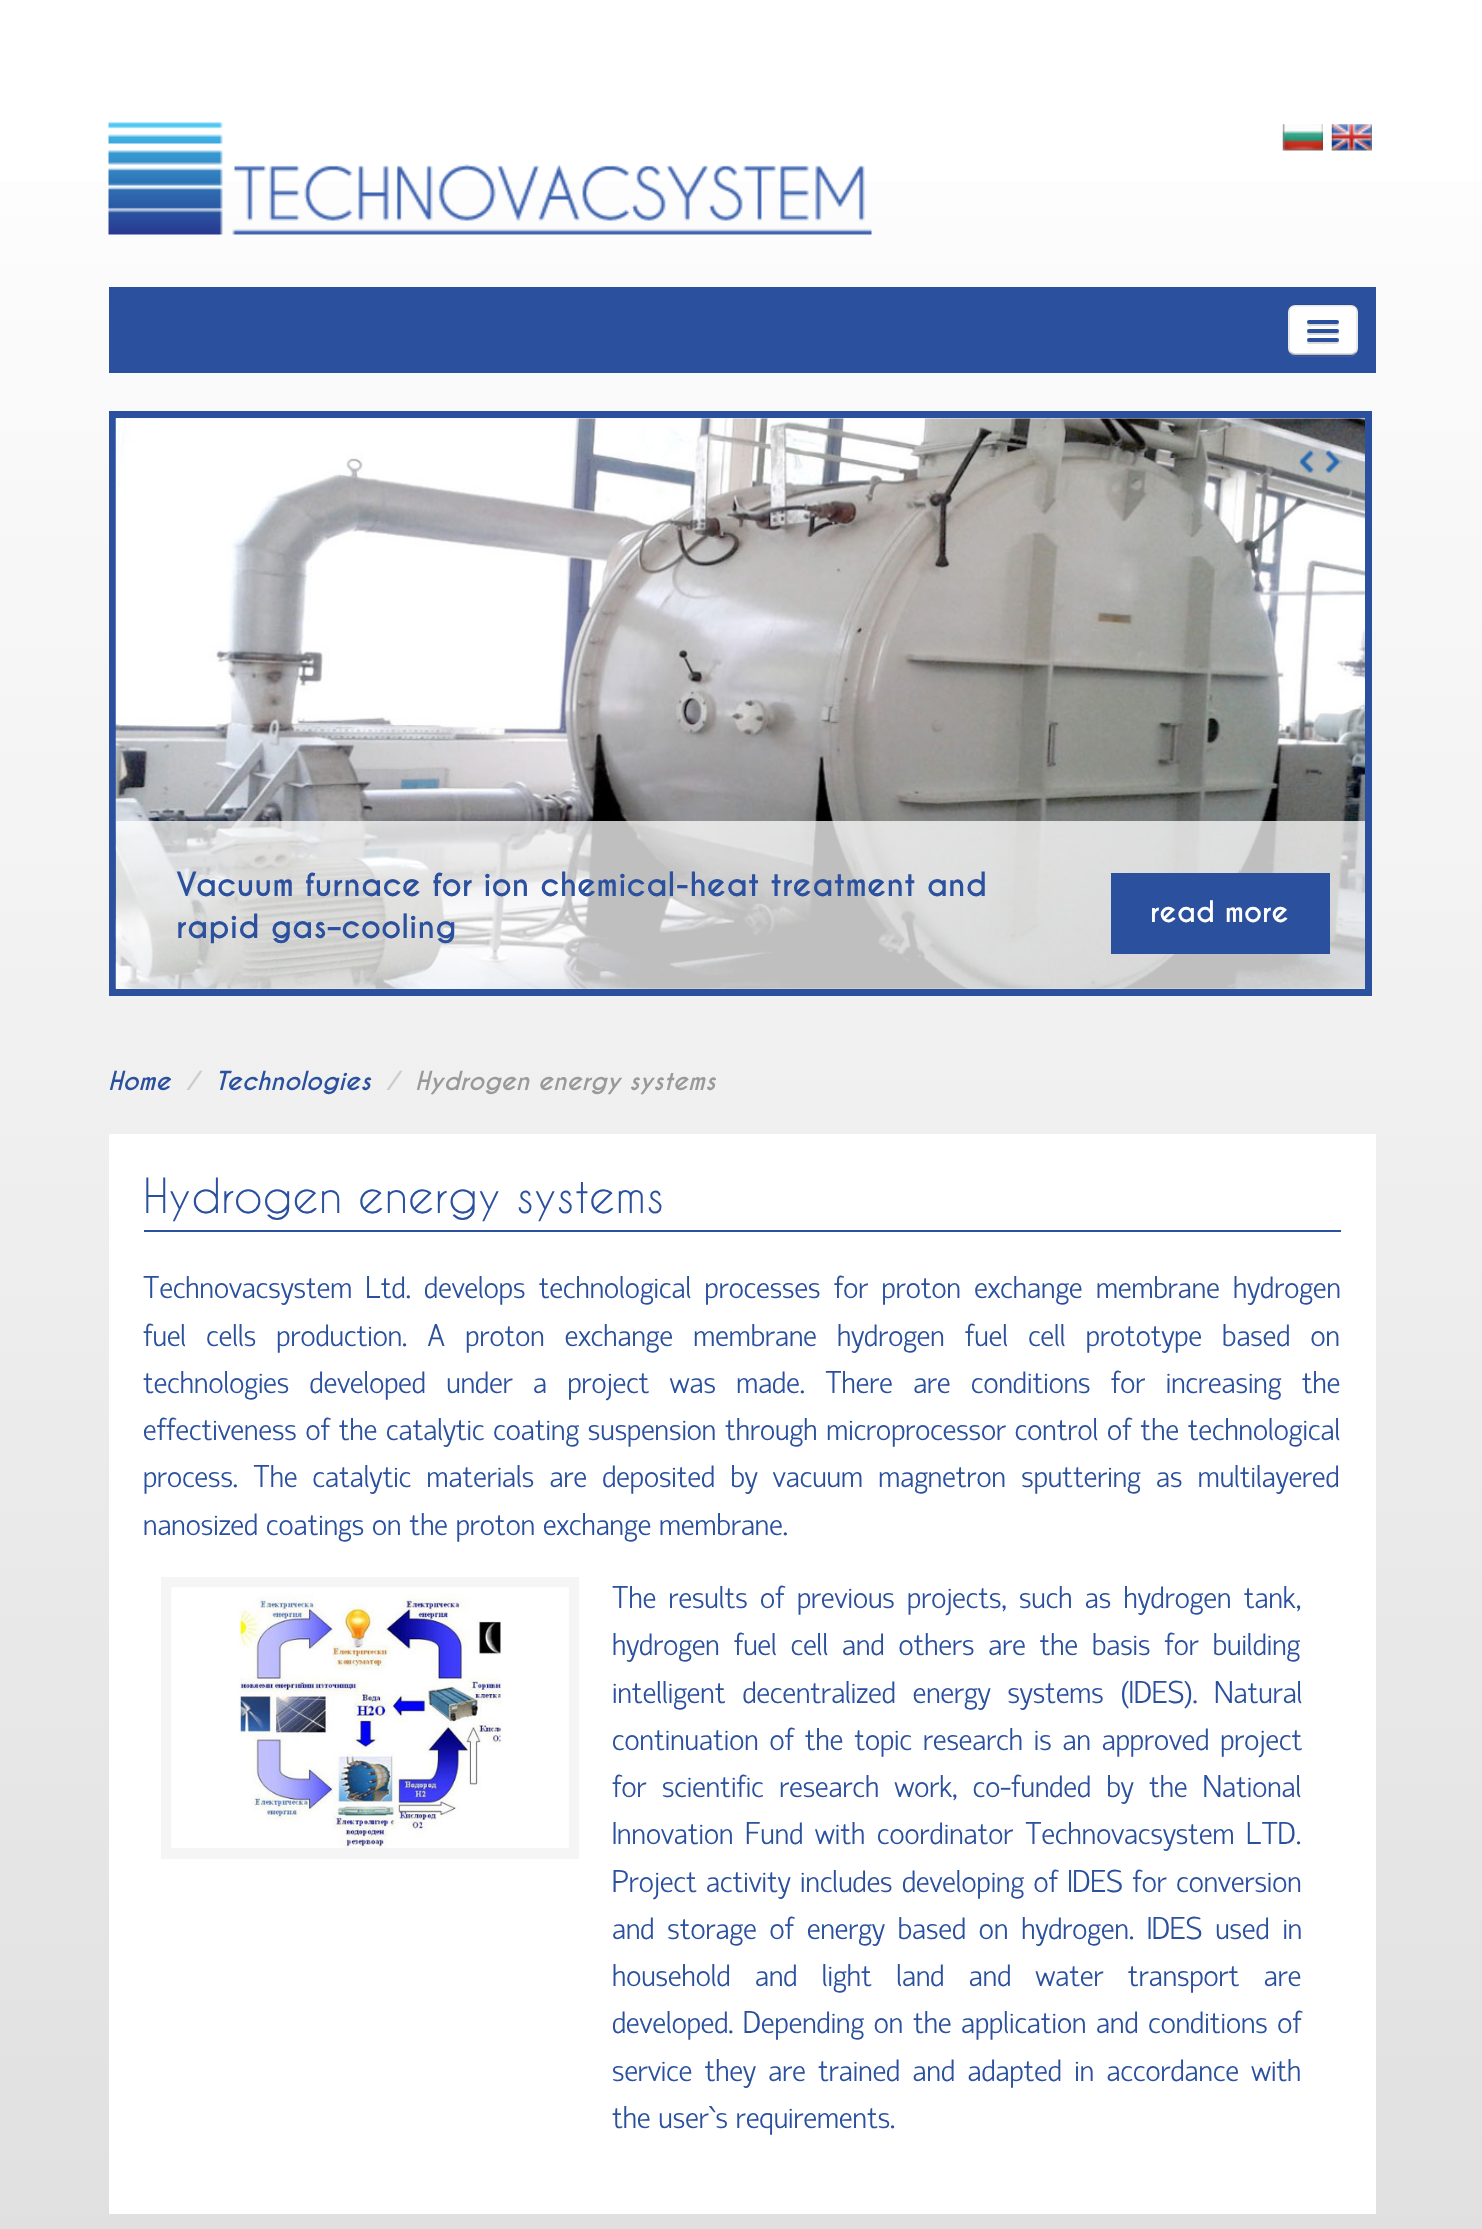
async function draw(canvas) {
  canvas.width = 1482
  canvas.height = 2229
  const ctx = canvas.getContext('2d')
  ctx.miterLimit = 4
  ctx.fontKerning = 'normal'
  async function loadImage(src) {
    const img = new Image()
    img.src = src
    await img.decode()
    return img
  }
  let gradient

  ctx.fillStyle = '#fff'
  ctx.fillRect(0, 0, 1482, 2229)
  gradient = ctx.createLinearGradient(741, 0, 741, 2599)
  gradient.addColorStop(0, '#fff')
  gradient.addColorStop(1, '#dbdbdb')
  ctx.fillStyle = gradient
  ctx.fillRect(0, 181, 1482, 2048)
  ctx.drawImage(await loadImage('image0.png'), 108, 122, 764, 113)
  ctx.drawImage(await loadImage('image1.png'), 1282, 124, 41, 27)
  ctx.drawImage(await loadImage('image2.png'), 1331, 124, 41, 27)
  ctx.fillStyle = '#2a509e'
  ctx.fillRect(109, 287, 1267, 86)
  ctx.fillStyle = '#3a5da5'
  ctx.beginPath()
  ctx.moveTo(1288, 348)
  ctx.bezierCurveTo(1288, 359, 1296, 357, 1304, 357)
  ctx.lineTo(1342, 357)
  ctx.bezierCurveTo(1350, 357, 1358, 359, 1358, 348)
  ctx.bezierCurveTo(1358, 352, 1355, 355, 1351, 355)
  ctx.lineTo(1295, 355)
  ctx.bezierCurveTo(1291, 355, 1288, 352, 1288, 348)
  ctx.closePath()
  ctx.fill()
  ctx.fillStyle = '#fff'
  ctx.beginPath()
  ctx.roundRect(1288, 305, 70, 50, 7)
  ctx.fill()
  ctx.beginPath()
  ctx.moveTo(1355.5, 352.5)
  ctx.bezierCurveTo(1354, 353.5, 1352.5, 354.5, 1351, 354.5)
  ctx.lineTo(1295, 354.5)
  ctx.bezierCurveTo(1293.5, 354.5, 1292, 353.5, 1290.5, 352.5)
  ctx.strokeStyle = '#00000040'
  ctx.lineWidth = 1.8
  ctx.stroke()
  ctx.beginPath()
  ctx.moveTo(1290.5, 352.5)
  ctx.bezierCurveTo(1289.5, 351.5, 1289, 350, 1289, 348)
  ctx.lineTo(1289, 311.5)
  ctx.bezierCurveTo(1289, 310, 1289.5, 308.5, 1290.5, 307)
  ctx.bezierCurveTo(1292, 306, 1293.5, 305.5, 1295, 305.5)
  ctx.lineTo(1351, 305.5)
  ctx.bezierCurveTo(1352.5, 305.5, 1354, 306, 1355.5, 307)
  ctx.bezierCurveTo(1356.5, 308.5, 1357, 310, 1357, 311.5)
  ctx.lineTo(1357, 348)
  ctx.bezierCurveTo(1357, 350, 1356.5, 351.5, 1355.5, 352.5)
  ctx.strokeStyle = '#0000001a'
  ctx.stroke()
  ctx.fillStyle = '#d9d9d9'
  ctx.beginPath()
  ctx.moveTo(1307.5, 323)
  ctx.lineTo(1307, 324.5)
  ctx.bezierCurveTo(1307.5, 327, 1312.5, 326, 1313.5, 326)
  ctx.lineTo(1332.5, 326)
  ctx.bezierCurveTo(1333.5, 326, 1338.5, 327, 1339, 324.5)
  ctx.lineTo(1338.5, 323)
  ctx.bezierCurveTo(1338.5, 323.5, 1337.5, 324, 1337, 324)
  ctx.lineTo(1309, 324)
  ctx.bezierCurveTo(1308.5, 324, 1307.5, 323.5, 1307.5, 323)
  ctx.closePath()
  ctx.fill()
  ctx.fillStyle = '#2a509e'
  ctx.beginPath()
  ctx.roundRect(1307, 320, 32, 4, 2)
  ctx.fill()
  ctx.fillStyle = '#d9d9d9'
  ctx.beginPath()
  ctx.moveTo(1307.5, 331.5)
  ctx.bezierCurveTo(1306.5, 333, 1307, 334.5, 1308.5, 335)
  ctx.lineTo(1337.5, 335)
  ctx.bezierCurveTo(1339, 334.5, 1339.5, 333, 1338.5, 331.5)
  ctx.lineTo(1337, 332.5)
  ctx.lineTo(1309, 332.5)
  ctx.closePath()
  ctx.fill()
  ctx.fillStyle = '#2a509e'
  ctx.beginPath()
  ctx.roundRect(1307, 329, 32, 4, 2)
  ctx.fill()
  ctx.fillStyle = '#d9d9d9'
  ctx.beginPath()
  ctx.moveTo(1307.5, 340.5)
  ctx.bezierCurveTo(1306.5, 342, 1307, 344, 1309, 344)
  ctx.bezierCurveTo(1312.5, 344, 1337, 344.5, 1338, 343.5)
  ctx.bezierCurveTo(1339, 343, 1339.5, 341.5, 1338.5, 340.5)
  ctx.lineTo(1337, 341)
  ctx.lineTo(1309, 341)
  ctx.closePath()
  ctx.fill()
  ctx.fillStyle = '#2a509e'
  ctx.beginPath()
  ctx.roundRect(1307, 338, 32, 4, 2)
  ctx.fill()
  ctx.strokeStyle = '#2a509e'
  ctx.lineWidth = 7
  ctx.strokeRect(112.5, 414.5, 1256, 578)
  ctx.drawImage(await loadImage('image5.png'), 115, 418, 1250, 571)
  ctx.drawImage(await loadImage('image3.png'), 1299, 449, 16, 24)
  ctx.drawImage(await loadImage('image4.png'), 1324, 449, 19, 24)
  ctx.fillStyle = '#ffffffbf'
  ctx.fillRect(116, 821, 1249, 168)
  ctx.font = 'bold 31.5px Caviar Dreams'
  ctx.fillStyle = '#2a509e'
  ctx.fillText('Vacuum furnace for ion chemical-heat treatment and', 176, 896)
  ctx.fillText('rapid gas–cooling', 176, 938)
  ctx.fillRect(1111, 873, 219, 81)
  ctx.font = 'bold 28px Caviar Dreams'
  ctx.fillStyle = '#fff'
  ctx.fillText('read more', 1150, 922)
  ctx.font = 'italic bold 24.5px Caviar Dreams'
  ctx.fillStyle = '#2a509e'
  ctx.fillText('Home', 108, 1090)
  ctx.fillStyle = '#ccc'
  ctx.fillText('/', 187, 1090)
  ctx.fillStyle = '#2a509e'
  ctx.fillText('Technologies', 215, 1090)
  ctx.fillStyle = '#ccc'
  ctx.fillText('/', 387, 1090)
  ctx.fillStyle = '#999'
  ctx.fillText('Hydrogen energy systems', 415, 1090)
  ctx.fillStyle = '#fff'
  ctx.fillRect(109, 1134, 1267, 1080)
  ctx.fillStyle = '#2a509e'
  ctx.fillRect(144, 1230, 1197, 2)
  ctx.font = '45.5px Caviar Dreams'
  ctx.fillText('Hydrogen energy systems', 143, 1213)
  ctx.wordSpacing = '5.5px'
  ctx.font = '300 31.5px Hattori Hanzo'
  ctx.fillText('Technovacsystem Ltd. develops technological processes for proton exchange membrane hydrogen', 143, 1298)
  ctx.wordSpacing = '12.25px'
  ctx.fillText('fuel cells production. A proton exchange membrane hydrogen fuel cell prototype based on', 143, 1346)
  ctx.wordSpacing = '12.5px'
  ctx.fillText('technologies developed under a project was made. There are conditions for increasing the', 143, 1393)
  ctx.wordSpacing = '0.9px'
  ctx.fillText('effectiveness of the catalytic coating suspension through microprocessor control of the technological', 143, 1440)
  ctx.wordSpacing = '7.4px'
  ctx.fillText('process. The catalytic materials are deposited by vacuum magnetron sputtering as multilayered', 143, 1487)
  ctx.wordSpacing = '0px'
  ctx.fillText('nanosized coatings on the proton exchange membrane.', 143, 1535)
  ctx.strokeStyle = '#f5f5f5'
  ctx.lineWidth = 11
  ctx.strokeRect(166.5, 1582.5, 407, 271)
  ctx.drawImage(await loadImage('image6.png'), 171, 1587, 398, 261)
  ctx.wordSpacing = '4.5px'
  ctx.fillText('The results of previous projects, such as hydrogen tank,', 612, 1608)
  ctx.wordSpacing = '6px'
  ctx.fillText('hydrogen fuel cell and others are the basis for building', 612, 1655)
  ctx.wordSpacing = '9px'
  ctx.fillText('intelligent decentralized energy systems (IDES). Natural', 612, 1703)
  ctx.wordSpacing = '3px'
  ctx.fillText('continuation of the topic research is an approved project', 612, 1750)
  ctx.wordSpacing = '7.5px'
  ctx.fillText('for scientific research work, co-funded by the National', 612, 1797)
  ctx.wordSpacing = '4px'
  ctx.fillText('Innovation Fund with coordinator Technovacsystem LTD.', 612, 1844)
  ctx.wordSpacing = '1.5px'
  ctx.fillText('Project activity includes developing of IDES for conversion', 612, 1892)
  ctx.wordSpacing = '5px'
  ctx.fillText('and storage of energy based on hydrogen. IDES used in', 612, 1939)
  ctx.wordSpacing = '16.5px'
  ctx.fillText('household and light land and water transport are', 612, 1986)
  ctx.wordSpacing = '1.75px'
  ctx.fillText('developed. Depending on the application and conditions of', 612, 2033)
  ctx.wordSpacing = '4.5px'
  ctx.fillText('service they are trained and adapted in accordance with', 612, 2081)
  ctx.wordSpacing = '0px'
  ctx.fillText('the user`s requirements.', 612, 2128)
}

draw(document.querySelector('canvas'))
